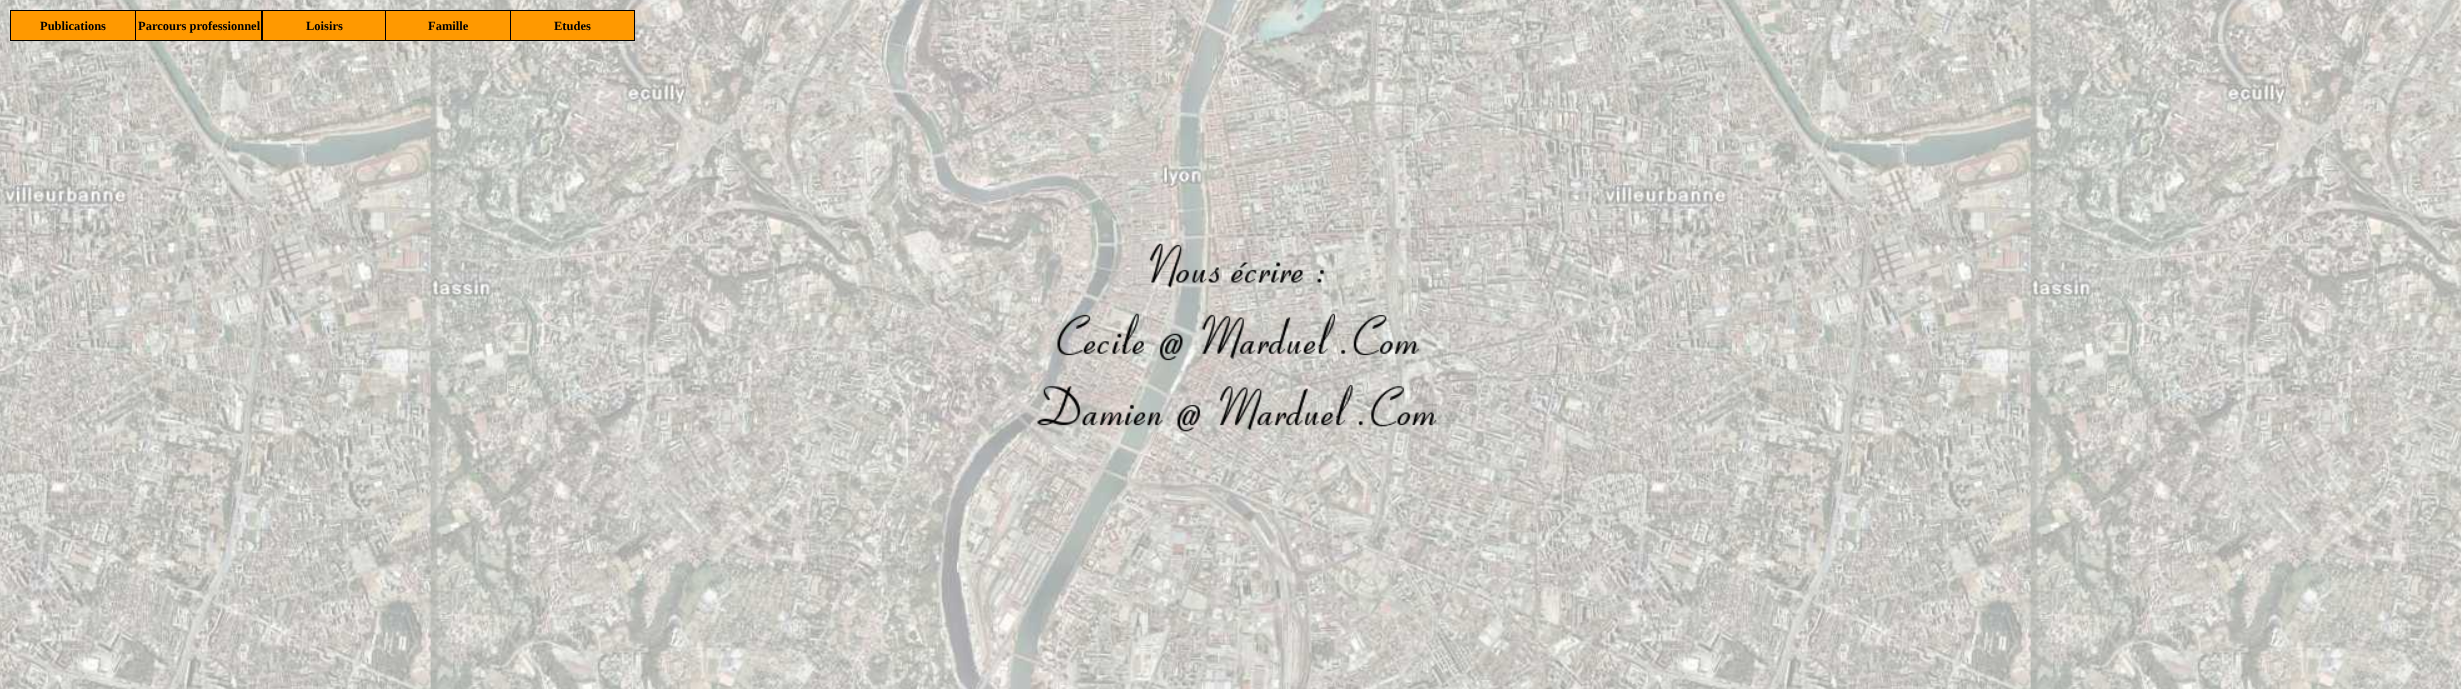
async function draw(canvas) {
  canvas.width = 2461
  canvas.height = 689
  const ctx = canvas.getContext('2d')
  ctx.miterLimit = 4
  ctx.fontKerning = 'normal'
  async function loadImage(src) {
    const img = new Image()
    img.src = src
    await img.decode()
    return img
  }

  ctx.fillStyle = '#fff'
  ctx.fillRect(0, 0, 2461, 689)
  ctx.drawImage(await loadImage('image0.png'), 0, 0, 2461, 689)
  ctx.fillStyle = '#000'
  ctx.fillRect(10, 10, 625, 31)
  ctx.fillStyle = '#f90'
  ctx.fillRect(11, 11, 124, 29)
  ctx.font = 'bold 12.5px Liberation Serif'
  ctx.fillStyle = '#000'
  ctx.fillText('Publications', 40, 30)
  ctx.fillStyle = '#f90'
  ctx.fillRect(136, 11, 125, 29)
  ctx.fillStyle = '#000'
  ctx.fillText('Parcours professionnel', 138, 30)
  ctx.fillStyle = '#f90'
  ctx.fillRect(263, 11, 122, 29)
  ctx.fillStyle = '#000'
  ctx.fillText('Loisirs', 306, 30)
  ctx.fillStyle = '#f90'
  ctx.fillRect(386, 11, 124, 29)
  ctx.fillStyle = '#000'
  ctx.fillText('Famille', 428, 30)
  ctx.fillStyle = '#f90'
  ctx.fillRect(511, 11, 123, 29)
  ctx.fillStyle = '#000'
  ctx.fillText('Etudes', 554, 30)
  ctx.drawImage(await loadImage('image1.png'), 1037, 243, 400, 189)
}

draw(document.querySelector('canvas'))
